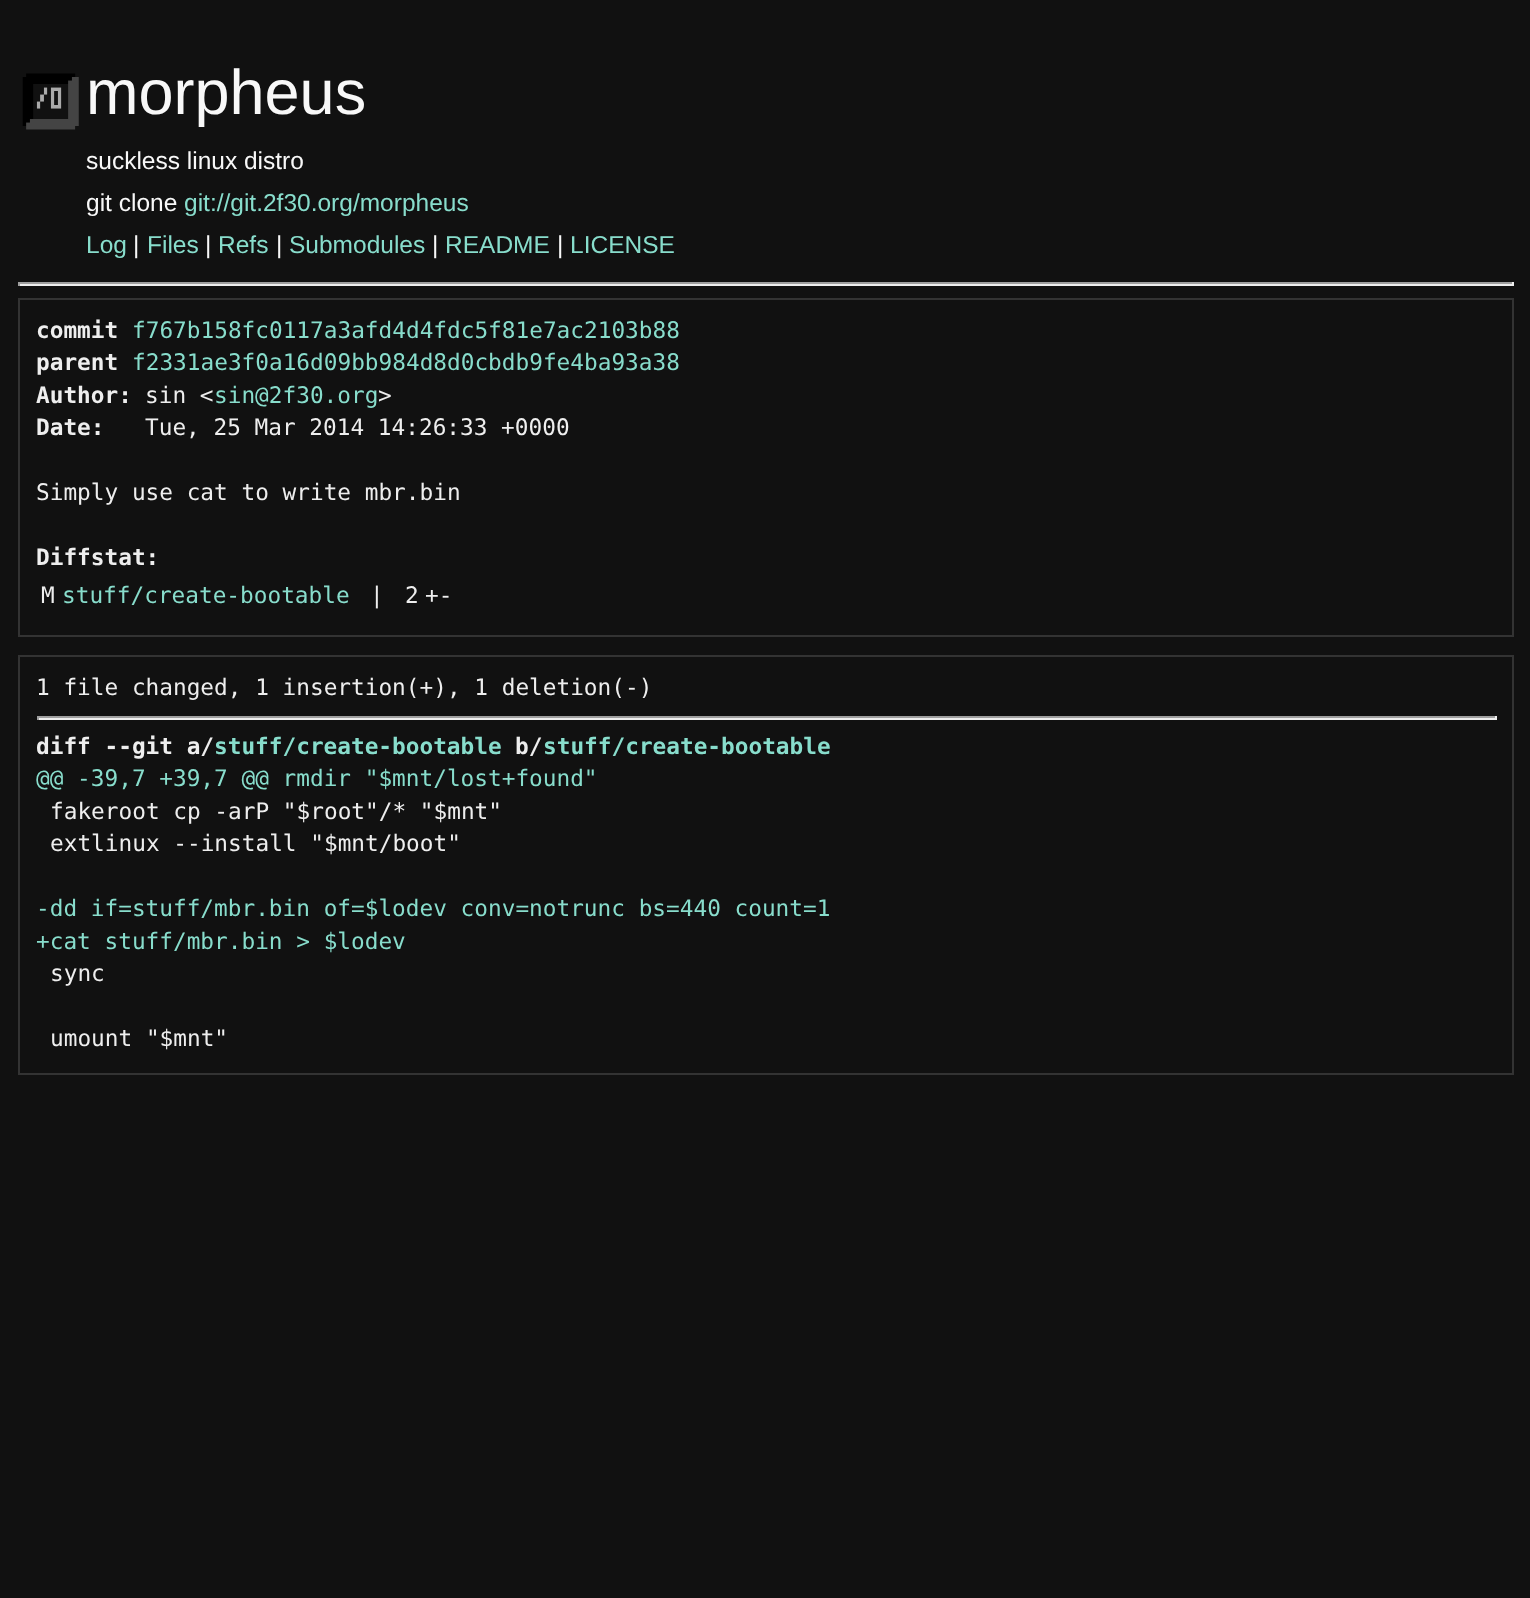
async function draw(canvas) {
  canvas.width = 1530
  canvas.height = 1598
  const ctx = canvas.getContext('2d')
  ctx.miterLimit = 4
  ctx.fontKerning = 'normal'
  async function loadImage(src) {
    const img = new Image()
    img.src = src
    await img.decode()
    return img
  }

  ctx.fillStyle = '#111'
  ctx.fillRect(0, 0, 1530, 1598)
  ctx.drawImage(await loadImage('image0.png'), 22, 73, 57, 57)
  ctx.font = '63px Liberation Sans'
  ctx.fillStyle = '#f8f8f8'
  ctx.fillText('morpheus', 86, 114)
  ctx.font = '24.5px Liberation Sans'
  ctx.fillText('suckless linux distro', 86, 169)
  ctx.fillText('git clone', 86, 211)
  ctx.fillStyle = '#8dc'
  ctx.fillText('git://git.2f30.org/morpheus', 184, 211)
  ctx.fillText('Log', 86, 253)
  ctx.fillStyle = '#f8f8f8'
  ctx.fillText('|', 133, 253)
  ctx.fillStyle = '#8dc'
  ctx.fillText('Files', 147, 253)
  ctx.fillStyle = '#f8f8f8'
  ctx.fillText('|', 205, 253)
  ctx.fillStyle = '#8dc'
  ctx.fillText('Refs', 218, 253)
  ctx.fillStyle = '#f8f8f8'
  ctx.fillText('|', 276, 253)
  ctx.fillStyle = '#8dc'
  ctx.fillText('Submodules', 289, 253)
  ctx.fillStyle = '#f8f8f8'
  ctx.fillText('|', 432, 253)
  ctx.fillStyle = '#8dc'
  ctx.fillText('README', 445, 253)
  ctx.fillStyle = '#f8f8f8'
  ctx.fillText('|', 557, 253)
  ctx.fillStyle = '#8dc'
  ctx.fillText('LICENSE', 570, 253)
  ctx.fillStyle = '#9f9f9f'
  ctx.fillRect(18, 282, 1496, 2)
  ctx.fillStyle = '#eee'
  ctx.fillRect(1512, 282, 2, 4)
  ctx.fillRect(18, 284, 1496, 2)
  ctx.fillStyle = '#9f9f9f'
  ctx.fillRect(18, 282, 2, 4)
  ctx.strokeStyle = '#333'
  ctx.lineWidth = 2
  ctx.strokeRect(19, 299, 1494, 337)
  ctx.font = 'bold 22.75px DejaVu Sans Mono'
  ctx.fillStyle = '#eee'
  ctx.fillText('commit', 36, 338)
  ctx.font = '22.75px DejaVu Sans Mono'
  ctx.fillStyle = '#8dc'
  ctx.fillText('f767b158fc0117a3afd4d4fdc5f81e7ac2103b88', 132, 338)
  ctx.font = 'bold 22.75px DejaVu Sans Mono'
  ctx.fillStyle = '#eee'
  ctx.fillText('parent', 36, 370)
  ctx.font = '22.75px DejaVu Sans Mono'
  ctx.fillStyle = '#8dc'
  ctx.fillText('f2331ae3f0a16d09bb984d8d0cbdb9fe4ba93a38', 132, 370)
  ctx.font = 'bold 22.75px DejaVu Sans Mono'
  ctx.fillStyle = '#eee'
  ctx.fillText('Author:', 36, 403)
  ctx.font = '22.75px DejaVu Sans Mono'
  ctx.fillText('sin <', 145, 403)
  ctx.fillStyle = '#8dc'
  ctx.fillText('sin@2f30.org', 214, 403)
  ctx.fillStyle = '#eee'
  ctx.fillText('>', 378, 403)
  ctx.font = 'bold 22.75px DejaVu Sans Mono'
  ctx.fillText('Date:', 36, 435)
  ctx.font = '22.75px DejaVu Sans Mono'
  ctx.fillText('Tue, 25 Mar 2014 14:26:33 +0000', 145, 435)
  ctx.fillText('Simply use cat to write mbr.bin', 36, 500)
  ctx.font = 'bold 22.75px DejaVu Sans Mono'
  ctx.fillText('Diffstat:', 36, 565)
  ctx.font = '22.75px DejaVu Sans Mono'
  ctx.fillText('M', 41, 603)
  ctx.fillStyle = '#8dc'
  ctx.fillText('stuff/create-bootable', 62, 603)
  ctx.fillStyle = '#eee'
  ctx.fillText('|', 370, 603)
  ctx.fillText('2', 405, 603)
  ctx.fillText('+-', 425, 603)
  ctx.strokeRect(19, 656, 1494, 418)
  ctx.fillText('1 file changed, 1 insertion(+), 1 deletion(-)', 36, 695)
  ctx.fillStyle = '#9f9f9f'
  ctx.fillRect(37, 716, 1459, 2)
  ctx.fillStyle = '#eee'
  ctx.fillRect(1495, 716, 2, 4)
  ctx.fillRect(37, 718, 1459, 2)
  ctx.fillStyle = '#9f9f9f'
  ctx.fillRect(37, 716, 2, 4)
  ctx.font = 'bold 22.75px DejaVu Sans Mono'
  ctx.fillStyle = '#eee'
  ctx.fillText('diff --git a/', 36, 754)
  ctx.fillStyle = '#8dc'
  ctx.fillText('stuff/create-bootable', 214, 754)
  ctx.fillStyle = '#eee'
  ctx.fillText('b/', 515, 754)
  ctx.fillStyle = '#8dc'
  ctx.fillText('stuff/create-bootable', 543, 754)
  ctx.font = '22.75px DejaVu Sans Mono'
  ctx.fillText('@@ -39,7 +39,7 @@ rmdir "$mnt/lost+found"', 36, 786)
  ctx.fillStyle = '#eee'
  ctx.fillText('fakeroot cp -arP "$root"/* "$mnt"', 50, 819)
  ctx.fillText('extlinux --install "$mnt/boot"', 50, 851)
  ctx.fillStyle = '#8dc'
  ctx.fillText('-dd if=stuff/mbr.bin of=$lodev conv=notrunc bs=440 count=1', 36, 916)
  ctx.fillText('+cat stuff/mbr.bin > $lodev', 36, 949)
  ctx.fillStyle = '#eee'
  ctx.fillText('sync', 50, 981)
  ctx.fillText('umount "$mnt"', 50, 1046)
}

draw(document.querySelector('canvas'))
